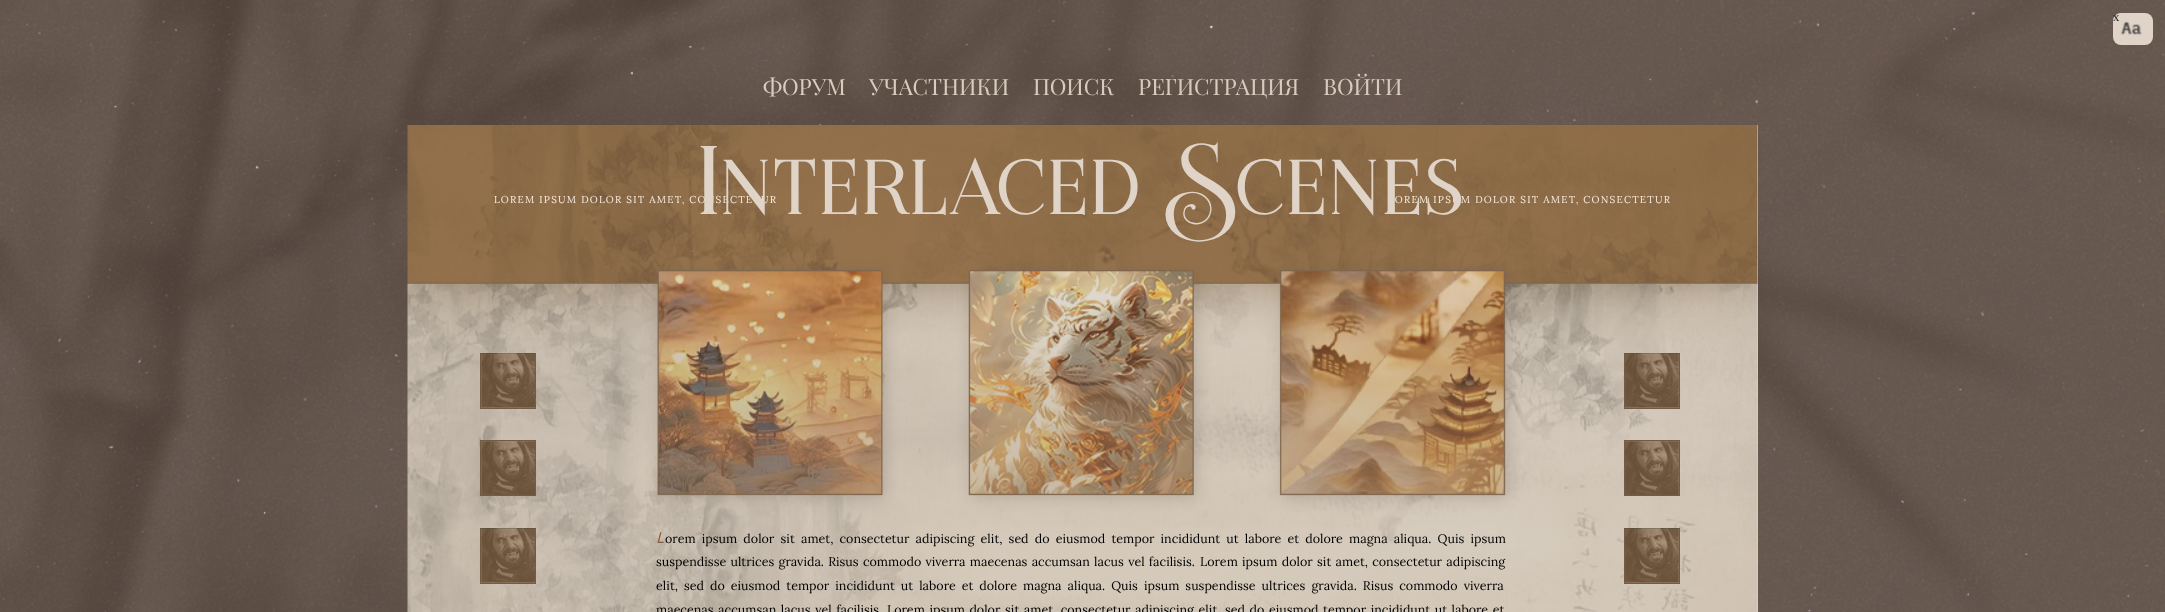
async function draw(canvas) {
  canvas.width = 2165
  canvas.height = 612
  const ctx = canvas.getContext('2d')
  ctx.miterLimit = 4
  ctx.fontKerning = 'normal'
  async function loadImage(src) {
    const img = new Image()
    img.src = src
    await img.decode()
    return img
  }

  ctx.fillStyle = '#fff'
  ctx.fillRect(0, 0, 2165, 612)
  ctx.drawImage(await loadImage('image0.png'), 0, 0, 2165, 612)
  ctx.fillStyle = '#dfd4c7'
  ctx.fillRect(1757, 125, 1, 487)
  ctx.beginPath()
  ctx.roundRect(2113, 13, 40, 32, 8)
  ctx.fill()
  ctx.drawImage(await loadImage('image1.png'), 2120, 21, 22, 14)
  ctx.font = '12.5px Liberation Serif'
  ctx.fillStyle = '#14191c'
  ctx.fillText('x', 2113, 21)
  ctx.drawImage(await loadImage('image8.png'), 407, 125, 1351, 487)
  ctx.letterSpacing = '1.25px'
  ctx.font = '10px Lora'
  ctx.fillStyle = '#f9eddf'
  ctx.fillText('LOREM IPSUM DOLOR SIT AMET, CONSECTETUR', 494, 203)
  ctx.fillText('LOREM IPSUM DOLOR SIT AMET, CONSECTETUR', 1388, 203)
  ctx.font = '112.5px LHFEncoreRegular'
  ctx.fillStyle = '#dfd4c7'
  ctx.fillText('Interlaced Scenes', 699, 214)
  ctx.strokeStyle = '#725c45'
  ctx.strokeRect(480.5, 353.5, 55, 55)
  ctx.drawImage(await loadImage('image2.png'), 481, 353, 54, 55)
  ctx.fillStyle = '#906d4bb5'
  ctx.fillRect(481, 354, 54, 54)
  ctx.strokeRect(480.5, 440.5, 55, 55)
  ctx.drawImage(await loadImage('image3.png'), 481, 441, 54, 54)
  ctx.fillRect(481, 441, 54, 54)
  ctx.strokeRect(480.5, 528.5, 55, 55)
  ctx.drawImage(await loadImage('image4.png'), 481, 528, 54, 55)
  ctx.fillRect(481, 529, 54, 54)
  ctx.letterSpacing = '0px'
  ctx.font = 'italic 15px Noto Sans'
  ctx.fillStyle = '#845d3f'
  ctx.fillText('L', 656, 543)
  ctx.wordSpacing = '2.9px'
  ctx.font = '12.5px Lora'
  ctx.fillStyle = '#000'
  ctx.fillText('orem ipsum dolor sit amet, consectetur adipiscing elit, sed do eiusmod tempor incididunt ut labore et dolore magna aliqua. Quis ipsum', 665, 543)
  ctx.wordSpacing = '1px'
  ctx.fillText('suspendisse ultrices gravida. Risus commodo viverra maecenas accumsan lacus vel facilisis.', 656, 566)
  ctx.fillText('Lorem ipsum dolor sit amet, consectetur adipiscing', 1200, 566)
  ctx.wordSpacing = '2.75px'
  ctx.fillText('elit, sed do eiusmod tempor incididunt ut labore et dolore magna aliqua. Quis ipsum suspendisse ultrices gravida. Risus commodo viverra', 656, 590)
  ctx.wordSpacing = '1.3px'
  ctx.fillText('maecenas accumsan lacus vel facilisis', 656, 614)
  ctx.fillText('Lorem ipsum dolor sit amet, consectetur adipiscing elit, sed do eiusmod tempor incididunt ut labore et', 887, 614)
  ctx.strokeRect(1624.5, 353.5, 55, 55)
  ctx.drawImage(await loadImage('image5.png'), 1625, 353, 54, 55)
  ctx.fillStyle = '#906d4bb5'
  ctx.fillRect(1625, 354, 54, 54)
  ctx.strokeRect(1624.5, 440.5, 55, 55)
  ctx.drawImage(await loadImage('image6.png'), 1625, 441, 54, 54)
  ctx.fillRect(1625, 441, 54, 54)
  ctx.strokeRect(1624.5, 528.5, 55, 55)
  ctx.drawImage(await loadImage('image7.png'), 1625, 528, 54, 55)
  ctx.fillRect(1625, 529, 54, 54)
  ctx.wordSpacing = '0px'
  ctx.font = '22.5px Playfair Display'
  ctx.fillStyle = '#d7ccbe'
  ctx.fillText('ФОРУМ', 763, 95)
  ctx.fillText('УЧАСТНИКИ', 869, 95)
  ctx.fillText('ПОИСК', 1033, 95)
  ctx.fillText('РЕГИСТРАЦИЯ', 1138, 95)
  ctx.fillText('ВОЙТИ', 1323, 95)
}

draw(document.querySelector('canvas'))
